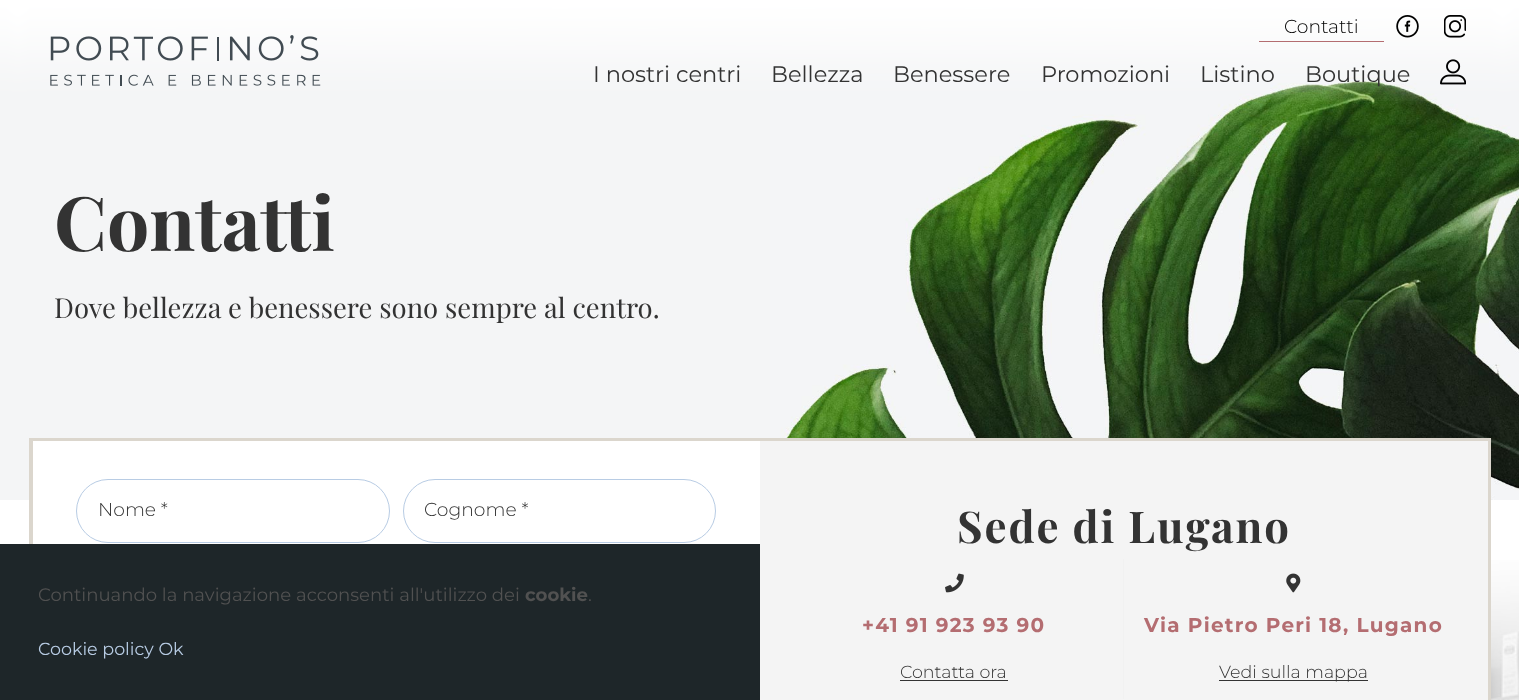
async function draw(canvas) {
  canvas.width = 1519
  canvas.height = 700
  const ctx = canvas.getContext('2d')
  ctx.miterLimit = 4
  ctx.fontKerning = 'normal'
  async function loadImage(src) {
    const img = new Image()
    img.src = src
    await img.decode()
    return img
  }

  ctx.fillStyle = '#fff'
  ctx.fillRect(0, 0, 1519, 700)
  ctx.fillStyle = '#f4f5f6'
  ctx.fillRect(0, 0, 1519, 500)
  ctx.drawImage(await loadImage('image5.png'), 770, 74, 749, 426)
  ctx.drawImage(await loadImage('image0.png'), 0, 0, 1519, 101)
  ctx.drawImage(await loadImage('image1.png'), 50, 35, 271, 51)
  ctx.fillStyle = '#b46d71'
  ctx.fillRect(1259, 41, 125, 1)
  ctx.font = '300 18.75px Montserrat'
  ctx.fillStyle = '#000'
  ctx.fillText('Contatti', 1284, 33)
  ctx.drawImage(await loadImage('image2.png'), 1396, 15, 23, 23)
  ctx.drawImage(await loadImage('image3.png'), 1444, 15, 22, 23)
  ctx.font = '22.5px Montserrat'
  ctx.fillStyle = '#333'
  ctx.fillText('I nostri centri', 593, 82)
  ctx.fillText('Bellezza', 771, 82)
  ctx.fillText('Benessere', 893, 82)
  ctx.fillText('Promozioni', 1041, 82)
  ctx.fillText('Listino', 1200, 82)
  ctx.fillText('Boutique', 1305, 82)
  ctx.drawImage(await loadImage('image4.png'), 1440, 59, 26, 26)
  ctx.font = 'bold 75px Playfair Display'
  ctx.fillText('Contatti', 54, 251)
  ctx.font = '27.5px Playfair Display'
  ctx.fillText('Dove bellezza e benessere sono sempre al centro.', 54, 318)
  ctx.drawImage(await loadImage('image6.png'), 1491, 560, 28, 140)
  ctx.strokeStyle = '#dbd6cd'
  ctx.lineWidth = 4
  ctx.strokeRect(31, 440, 1458, 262)
  ctx.fillStyle = '#fff'
  ctx.fillRect(33, 441, 727, 59)
  ctx.beginPath()
  ctx.roundRect(76.5, 479.5, 313, 63, 31.5)
  ctx.strokeStyle = '#b8cce4'
  ctx.lineWidth = 1
  ctx.stroke()
  ctx.font = '300 18.75px Montserrat'
  ctx.fillStyle = '#333'
  ctx.fillText('Nome *', 98, 516)
  ctx.beginPath()
  ctx.roundRect(403.5, 479.5, 312, 63, 31.5)
  ctx.stroke()
  ctx.fillText('Cognome *', 424, 516)
  ctx.fillStyle = '#f4f4f4'
  ctx.fillRect(760, 441, 728, 259)
  ctx.letterSpacing = '1.9px'
  ctx.font = 'bold 43.75px Playfair Display'
  ctx.fillStyle = '#333'
  ctx.fillText('Sede di Lugano', 957, 543)
  ctx.fillStyle = '#f1f1f1'
  ctx.fillRect(1123, 559, 1, 140)
  ctx.drawImage(await loadImage('image7.png'), 945, 573, 19, 20)
  ctx.letterSpacing = '1.25px'
  ctx.font = 'bold 20px Montserrat'
  ctx.fillStyle = '#b46d71'
  ctx.fillText('+41 91 923 93 90', 862, 632)
  ctx.letterSpacing = '0px'
  ctx.font = '300 17.5px Montserrat'
  ctx.fillStyle = '#333'
  ctx.fillText('Contatta ora', 900, 678)
  ctx.fillRect(900, 680, 108, 1)
  ctx.drawImage(await loadImage('image8.png'), 1286, 573, 15, 20)
  ctx.letterSpacing = '1.25px'
  ctx.font = 'bold 20px Montserrat'
  ctx.fillStyle = '#b46d71'
  ctx.fillText('Via Pietro Peri 18, Lugano', 1144, 632)
  ctx.fillStyle = '#333'
  ctx.fillRect(1219, 680, 149, 1)
  ctx.letterSpacing = '0px'
  ctx.font = '300 17.5px Montserrat'
  ctx.fillText('Vedi sulla mappa', 1219, 678)
  ctx.fillStyle = '#1e2629'
  ctx.fillRect(0, 544, 760, 156)
  ctx.font = '18.1px Montserrat'
  ctx.fillStyle = '#515151'
  ctx.fillText('Continuando la navigazione acconsenti all\'utilizzo dei', 38, 601)
  ctx.font = 'bold 18.1px Montserrat'
  ctx.fillText('cookie', 525, 601)
  ctx.font = '18.1px Montserrat'
  ctx.fillText('.', 588, 601)
  ctx.font = '17.5px Montserrat'
  ctx.fillStyle = '#b8cce4'
  ctx.fillText('Cookie policy Ok', 38, 655)
}

draw(document.querySelector('canvas'))
